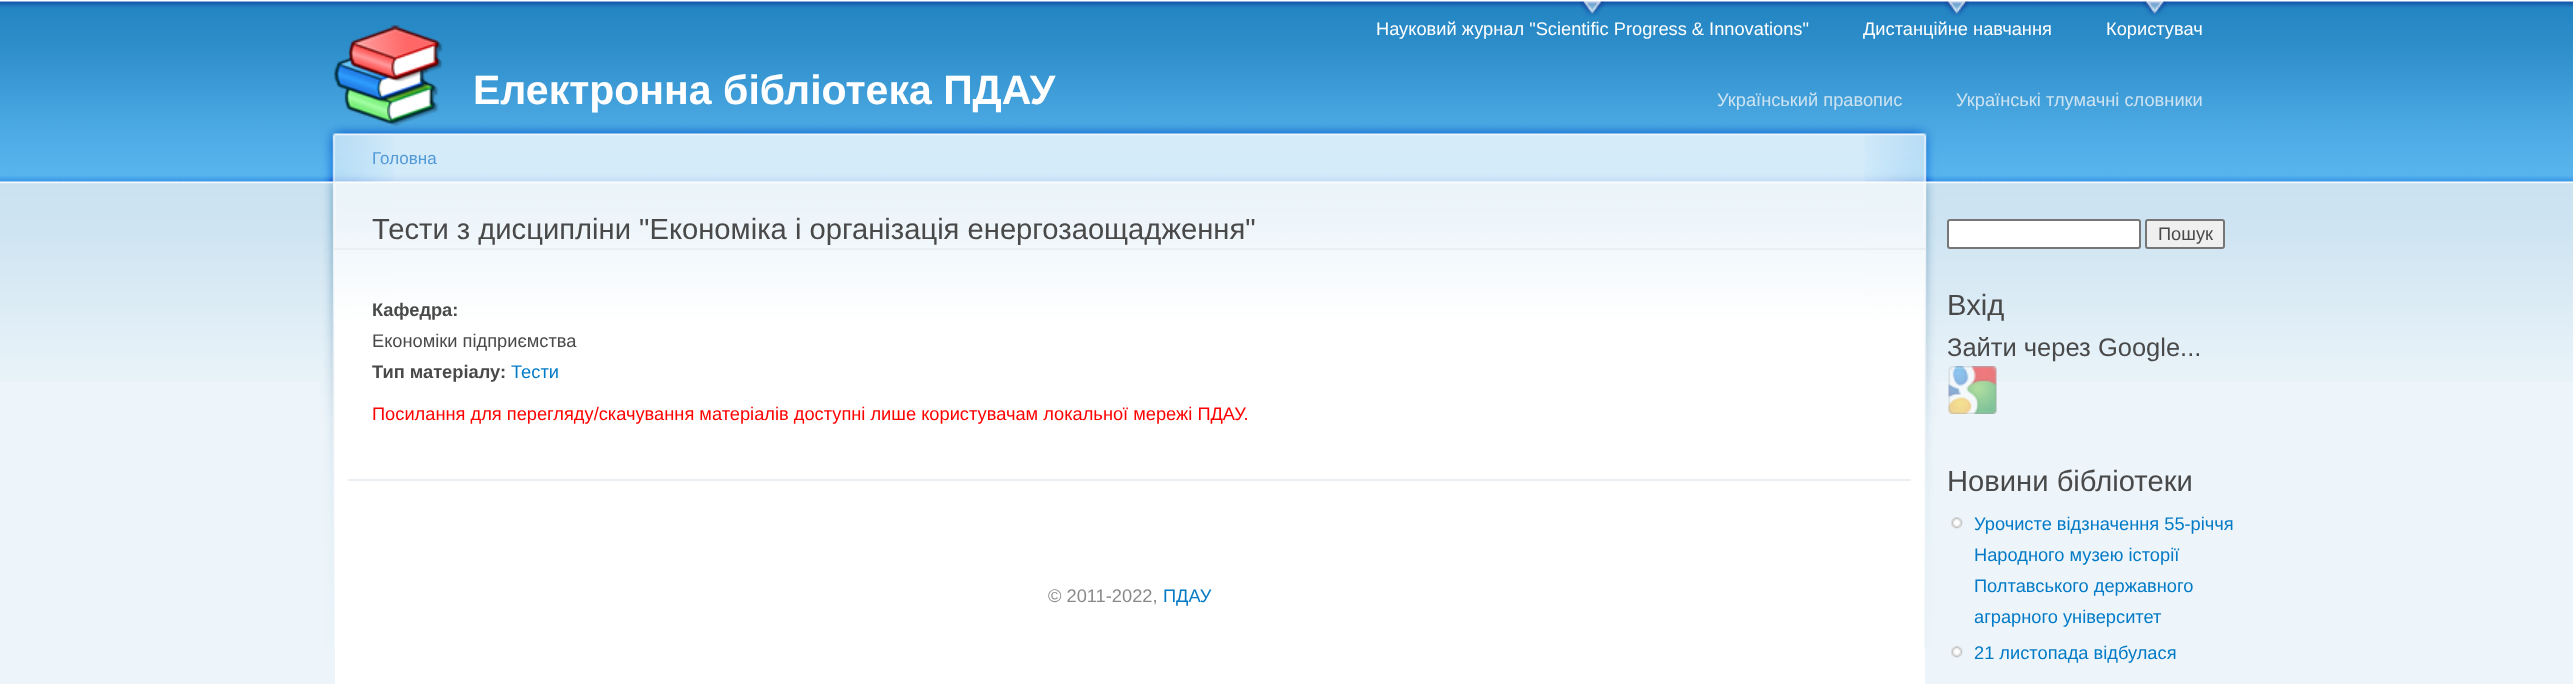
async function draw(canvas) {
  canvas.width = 2573
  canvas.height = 684
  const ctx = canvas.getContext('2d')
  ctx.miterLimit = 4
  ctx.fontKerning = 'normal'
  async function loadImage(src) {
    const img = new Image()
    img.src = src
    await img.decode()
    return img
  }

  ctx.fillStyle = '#edf5fa'
  ctx.fillRect(0, 0, 2573, 684)
  ctx.drawImage(await loadImage('image0.png'), 0, 0, 2573, 382)
  ctx.drawImage(await loadImage('image1.png'), 1580, 1, 25, 16)
  ctx.font = '18.25px Liberation Sans'
  ctx.fillStyle = '#fff'
  ctx.fillText('Науковий журнал "Scientific Progress & Innovations"', 1376, 35)
  ctx.drawImage(await loadImage('image2.png'), 1944, 1, 25, 16)
  ctx.fillText('Дистанційне навчання', 1863, 35)
  ctx.drawImage(await loadImage('image3.png'), 2142, 1, 25, 16)
  ctx.fillText('Користувач', 2106, 35)
  ctx.drawImage(await loadImage('image5.png'), 334, 120, 1531, 300)
  ctx.drawImage(await loadImage('image4.png'), 334, 25, 109, 101)
  ctx.font = 'bold 41px Liberation Sans'
  ctx.fillText('Електронна бібліотека ПДАУ', 473, 104)
  ctx.font = '18.25px Liberation Sans'
  ctx.fillStyle = '#cde3f1'
  ctx.fillText('Український правопис', 1717, 106)
  ctx.fillText('Українські тлумачні словники', 1956, 106)
  ctx.fillStyle = '#fff'
  ctx.fillRect(335, 420, 1590, 264)
  ctx.drawImage(await loadImage('image6.png'), 1864, 120, 75, 528)
  ctx.drawImage(await loadImage('image7.png'), 320, 126, 74, 522)
  ctx.font = '17px Liberation Sans'
  ctx.fillStyle = '#529ad6'
  ctx.fillText('Головна', 372, 164)
  ctx.fillStyle = '#e9eff3'
  ctx.fillRect(333, 248, 1593, 2)
  ctx.font = '29.2px Liberation Sans'
  ctx.fillStyle = '#494949'
  ctx.fillText('Тести з дисципліни "Економіка і організація енергозаощадження"', 372, 239)
  ctx.fillStyle = '#e9eff3'
  ctx.fillRect(348, 479, 1563, 2)
  ctx.font = 'bold 18.25px Liberation Sans'
  ctx.fillStyle = '#494949'
  ctx.fillText('Кафедра:', 372, 316)
  ctx.font = '18.25px Liberation Sans'
  ctx.fillText('Економіки підприємства', 372, 347)
  ctx.font = 'bold 18.25px Liberation Sans'
  ctx.fillText('Тип матеріалу:', 372, 378)
  ctx.font = '18.25px Liberation Sans'
  ctx.fillStyle = '#027ac6'
  ctx.fillText('Тести', 511, 378)
  ctx.fillStyle = '#f00'
  ctx.fillText('Посилання для перегляду/скачування матеріалів доступні лише користувачам локальної мережі ПДАУ.', 372, 420)
  ctx.fillStyle = '#898989'
  ctx.fillText('© 2011-2022,', 1048, 602)
  ctx.fillStyle = '#027ac6'
  ctx.fillText('ПДАУ', 1163, 602)
  ctx.fillStyle = '#fff'
  ctx.beginPath()
  ctx.roundRect(1948, 220, 192, 28, 2)
  ctx.fill()
  ctx.strokeStyle = '#767676'
  ctx.lineWidth = 2
  ctx.stroke()
  ctx.fillStyle = '#efefef'
  ctx.beginPath()
  ctx.roundRect(2146, 220, 78, 28, 2)
  ctx.fill()
  ctx.stroke()
  ctx.fillStyle = '#494949'
  ctx.fillText('Пошук', 2158, 240)
  ctx.font = '29.2px Liberation Sans'
  ctx.fillText('Вхід', 1947, 315)
  ctx.font = '25.5px Liberation Sans'
  ctx.fillText('Зайти через Google...', 1947, 356)
  ctx.drawImage(await loadImage('image8.png'), 1948, 366, 49, 48)
  ctx.font = '29.2px Liberation Sans'
  ctx.fillText('Новини бібліотеки', 1947, 491)
  ctx.drawImage(await loadImage('image9.png'), 1951, 517, 12, 12)
  ctx.font = '18.25px Liberation Sans'
  ctx.fillStyle = '#027ac6'
  ctx.fillText('Урочисте відзначення 55-річчя', 1974, 530)
  ctx.fillText('Народного музею історії', 1974, 561)
  ctx.fillText('Полтавського державного', 1974, 592)
  ctx.fillText('аграрного університет', 1974, 623)
  ctx.drawImage(await loadImage('image9.png'), 1951, 646, 12, 12)
  ctx.fillText('21 листопада відбулася', 1974, 659)
}

draw(document.querySelector('canvas'))
